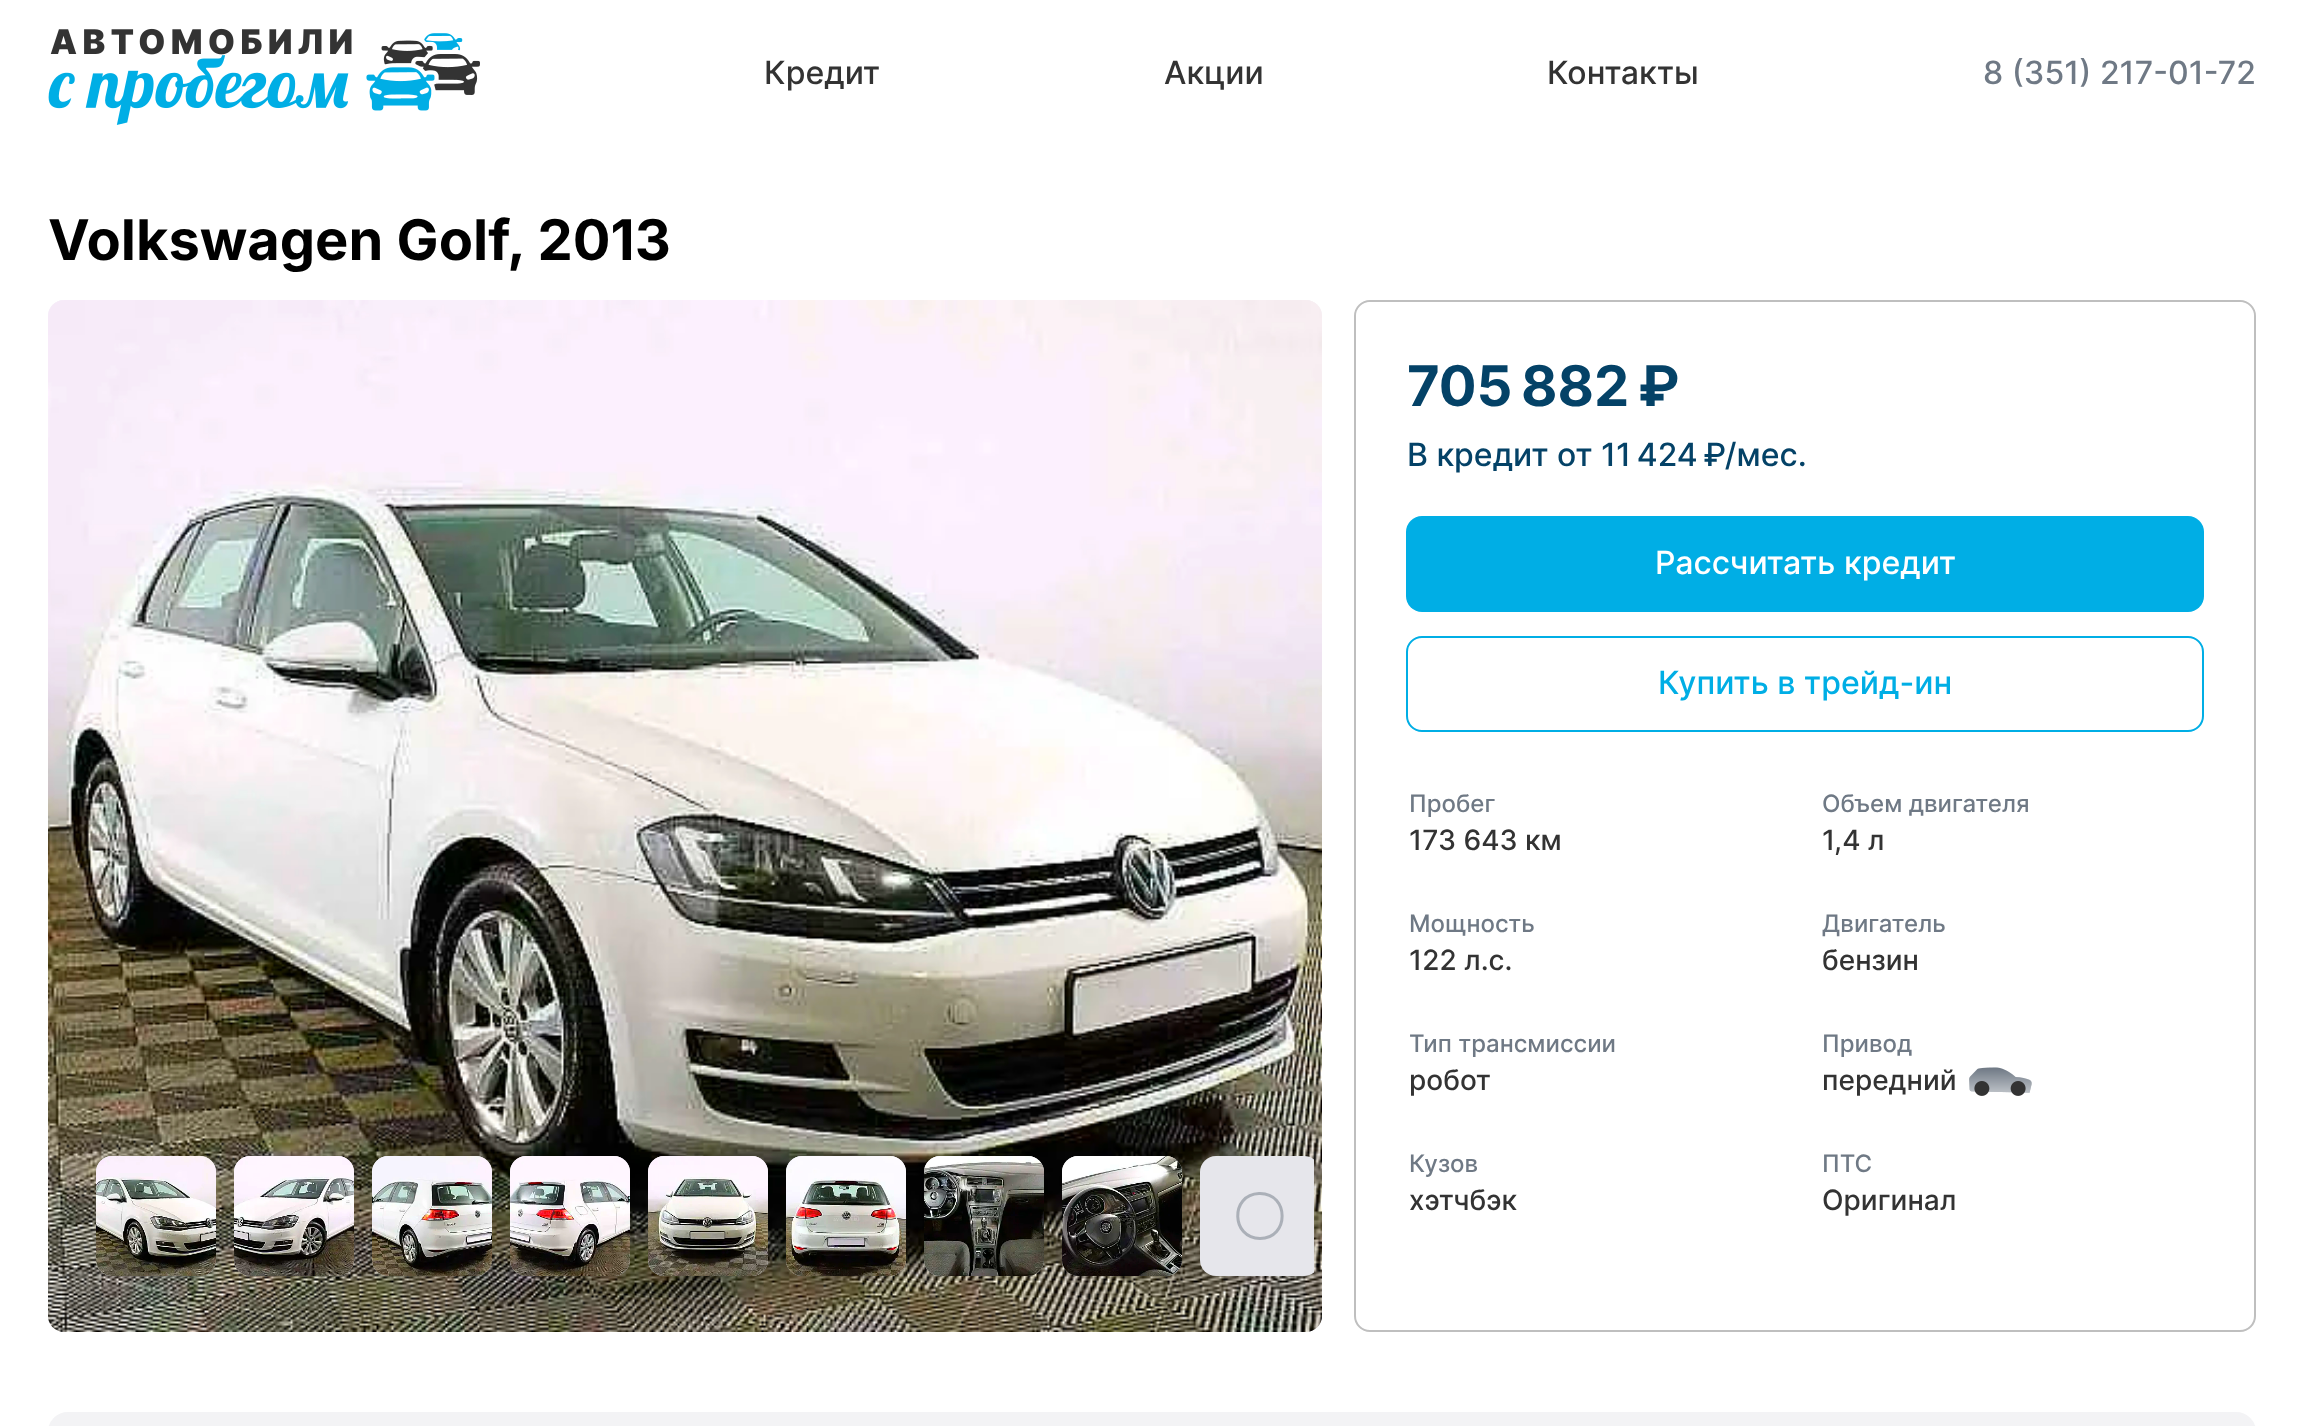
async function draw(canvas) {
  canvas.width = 2304
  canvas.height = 1426
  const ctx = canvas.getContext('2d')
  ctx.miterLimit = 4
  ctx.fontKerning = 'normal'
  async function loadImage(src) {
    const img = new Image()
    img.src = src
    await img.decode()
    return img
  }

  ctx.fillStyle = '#fff'
  ctx.fillRect(0, 0, 2304, 1426)
  ctx.drawImage(await loadImage('image0.png'), 48, 28, 432, 97)
  ctx.font = '500 32px Inter'
  ctx.fillStyle = '#333'
  ctx.fillText('Кредит', 764, 84)
  ctx.fillText('Акции', 1164, 84)
  ctx.fillText('Контакты', 1547, 84)
  ctx.fillStyle = '#6f7985'
  ctx.fillText('8 (351) 217-01-72', 1983, 84)
  ctx.font = 'bold 56px Inter'
  ctx.fillStyle = '#000'
  ctx.fillText('Volkswagen Golf, 2013', 48, 260)
  ctx.fillStyle = '#f3f3f5'
  ctx.beginPath()
  ctx.roundRect(48, 300, 1274, 1032, 16)
  ctx.fill()
  ctx.drawImage(await loadImage('image1.png'), 48, 300, 1274, 1032)
  ctx.fillStyle = '#e6e6eb'
  ctx.beginPath()
  ctx.roundRect(96, 1156, 120, 120, 16)
  ctx.fill()
  ctx.drawImage(await loadImage('image2.png'), 96, 1156, 120, 120)
  ctx.beginPath()
  ctx.roundRect(234, 1156, 120, 120, 16)
  ctx.fill()
  ctx.drawImage(await loadImage('image3.png'), 234, 1156, 120, 120)
  ctx.beginPath()
  ctx.roundRect(372, 1156, 120, 120, 16)
  ctx.fill()
  ctx.drawImage(await loadImage('image4.png'), 372, 1156, 120, 120)
  ctx.beginPath()
  ctx.roundRect(510, 1156, 120, 120, 16)
  ctx.fill()
  ctx.drawImage(await loadImage('image5.png'), 510, 1156, 120, 120)
  ctx.beginPath()
  ctx.roundRect(648, 1156, 120, 120, 16)
  ctx.fill()
  ctx.drawImage(await loadImage('image6.png'), 648, 1156, 120, 120)
  ctx.beginPath()
  ctx.roundRect(786, 1156, 120, 120, 16)
  ctx.fill()
  ctx.drawImage(await loadImage('image7.png'), 786, 1156, 120, 120)
  ctx.beginPath()
  ctx.roundRect(924, 1156, 120, 120, 16)
  ctx.fill()
  ctx.drawImage(await loadImage('image8.png'), 924, 1156, 120, 120)
  ctx.beginPath()
  ctx.roundRect(1062, 1156, 120, 120, 16)
  ctx.fill()
  ctx.drawImage(await loadImage('image9.png'), 1062, 1156, 120, 120)
  ctx.save()
  ctx.beginPath()
  ctx.rect(88, 1148, 1226, 138)
  ctx.clip()
  ctx.beginPath()
  ctx.roundRect(1200, 1156, 120, 120, 16)
  ctx.fill()
  ctx.restore()
  ctx.beginPath()
  ctx.moveTo(1260, 1193.5)
  ctx.bezierCurveTo(1289.5, 1193.5, 1289.5, 1238.5, 1260, 1238.5)
  ctx.bezierCurveTo(1231, 1238.5, 1230, 1194.5, 1259, 1193.5)
  ctx.strokeStyle = '#abb0b8'
  ctx.lineWidth = 3
  ctx.lineCap = 'round'
  ctx.stroke()
  ctx.beginPath()
  ctx.roundRect(1355, 301, 900, 1030, 15)
  ctx.strokeStyle = '#bfbfbf'
  ctx.lineWidth = 2
  ctx.stroke()
  ctx.fillStyle = '#fff'
  ctx.beginPath()
  ctx.roundRect(1356, 302, 898, 486, 16)
  ctx.fill()
  ctx.fillStyle = '#044267'
  ctx.fillText('705 882 ₽', 1407, 406)
  ctx.font = '500 32px Inter'
  ctx.fillText('В кредит от 11 424 ₽/мес.', 1407, 466)
  ctx.fillStyle = '#00aee5'
  ctx.beginPath()
  ctx.roundRect(1406, 516, 798, 96, 16)
  ctx.fill()
  ctx.fillStyle = '#fff'
  ctx.fillText('Рассчитать кредит', 1655, 574)
  ctx.beginPath()
  ctx.roundRect(1407, 637, 796, 94, 15)
  ctx.strokeStyle = '#00aee5'
  ctx.stroke()
  ctx.fillStyle = '#00aee5'
  ctx.fillText('Купить в трейд-ин', 1658, 694)
  ctx.font = '500 24px Inter'
  ctx.fillStyle = '#6f7985'
  ctx.fillText('Пробег', 1409, 812)
  ctx.font = '500 28px Inter'
  ctx.fillStyle = '#333'
  ctx.fillText('173 643 км', 1409, 850)
  ctx.font = '500 24px Inter'
  ctx.fillStyle = '#6f7985'
  ctx.fillText('Объем двигателя', 1822, 812)
  ctx.font = '500 28px Inter'
  ctx.fillStyle = '#333'
  ctx.fillText('1,4 л', 1822, 850)
  ctx.font = '500 24px Inter'
  ctx.fillStyle = '#6f7985'
  ctx.fillText('Мощность', 1409, 932)
  ctx.font = '500 28px Inter'
  ctx.fillStyle = '#333'
  ctx.fillText('122 л.с.', 1409, 970)
  ctx.font = '500 24px Inter'
  ctx.fillStyle = '#6f7985'
  ctx.fillText('Двигатель', 1822, 932)
  ctx.font = '500 28px Inter'
  ctx.fillStyle = '#333'
  ctx.fillText('бензин', 1822, 970)
  ctx.font = '500 24px Inter'
  ctx.fillStyle = '#6f7985'
  ctx.fillText('Тип трансмиссии', 1409, 1052)
  ctx.font = '500 28px Inter'
  ctx.fillStyle = '#333'
  ctx.fillText('робот', 1409, 1090)
  ctx.font = '500 24px Inter'
  ctx.fillStyle = '#6f7985'
  ctx.fillText('Привод', 1822, 1052)
  ctx.font = '500 28px Inter'
  ctx.fillStyle = '#333'
  ctx.fillText('передний', 1822, 1090)
  ctx.drawImage(await loadImage('image10.png'), 1969, 1067, 63, 29)
  ctx.font = '500 24px Inter'
  ctx.fillStyle = '#6f7985'
  ctx.fillText('Кузов', 1409, 1172)
  ctx.font = '500 28px Inter'
  ctx.fillStyle = '#333'
  ctx.fillText('хэтчбэк', 1409, 1210)
  ctx.font = '500 24px Inter'
  ctx.fillStyle = '#6f7985'
  ctx.fillText('ПТС', 1822, 1172)
  ctx.font = '500 28px Inter'
  ctx.fillStyle = '#333'
  ctx.fillText('Оригинал', 1822, 1210)
  ctx.fillStyle = '#f3f3f5'
  ctx.beginPath()
  ctx.roundRect(49, 1413, 2206, 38, 23)
  ctx.fill()
  ctx.strokeStyle = '#f3f3f5'
  ctx.stroke()
}

draw(document.querySelector('canvas'))
